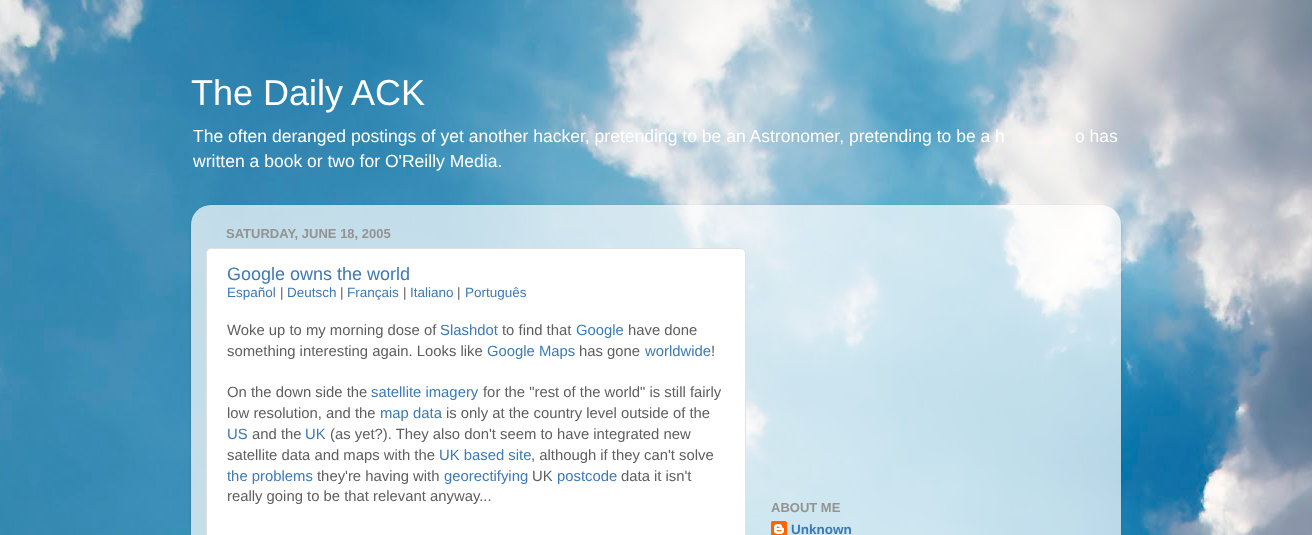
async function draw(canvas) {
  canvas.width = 1312
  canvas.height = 535
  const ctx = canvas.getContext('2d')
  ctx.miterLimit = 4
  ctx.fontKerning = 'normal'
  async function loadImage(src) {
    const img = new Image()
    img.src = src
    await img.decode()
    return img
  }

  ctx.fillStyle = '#fff'
  ctx.fillRect(0, 0, 1312, 535)
  ctx.drawImage(await loadImage('image0.png'), 0, 0, 1312, 535)
  ctx.font = '36px Liberation Sans'
  ctx.fillText('The Daily ACK', 191, 105)
  ctx.font = '17.55px Liberation Sans'
  ctx.fillText('The often deranged postings of yet another hacker, pretending to be an Astronomer, pretending to be a h', 193, 142)
  ctx.fillText('o has', 1075, 142)
  ctx.fillText('written a book or two for O\'Reilly Media.', 193, 167)
  ctx.save()
  ctx.beginPath()
  ctx.moveTo(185, 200)
  ctx.lineTo(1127, 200)
  ctx.lineTo(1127, 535)
  ctx.lineTo(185, 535)
  ctx.closePath()
  ctx.moveTo(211, 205)
  ctx.lineTo(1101, 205)
  ctx.bezierCurveTo(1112, 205, 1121, 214, 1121, 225)
  ctx.lineTo(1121, 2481)
  ctx.lineTo(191, 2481)
  ctx.lineTo(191, 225)
  ctx.bezierCurveTo(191, 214, 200, 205, 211, 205)
  ctx.closePath()
  ctx.clip('evenodd')
  ctx.fillStyle = '#00000026'
  ctx.filter = 'blur(1.5px)'
  ctx.beginPath()
  ctx.roundRect(191, 206, 930, 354, 20)
  ctx.fill()
  ctx.filter = 'none'
  ctx.restore()
  ctx.drawImage(await loadImage('image1.png'), 191, 205, 930, 330)
  ctx.font = 'bold 13px Liberation Sans'
  ctx.fillStyle = '#939393'
  ctx.fillText('SATURDAY, JUNE 18, 2005', 226, 238)
  ctx.fillStyle = '#fff'
  ctx.beginPath()
  ctx.roundRect(206.5, 248.5, 539, 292, 4.5)
  ctx.fill()
  ctx.strokeStyle = '#e1e1e1'
  ctx.stroke()
  ctx.font = '18px Liberation Sans'
  ctx.fillStyle = '#3c7ab5'
  ctx.fillText('Google owns the world', 227, 280)
  ctx.font = '13.5px Liberation Sans'
  ctx.fillText('Español', 227, 297)
  ctx.fillStyle = '#5e5e5e'
  ctx.fillText('|', 280, 297)
  ctx.fillStyle = '#3c7ab5'
  ctx.fillText('Deutsch', 287, 297)
  ctx.fillStyle = '#5e5e5e'
  ctx.fillText('|', 340, 297)
  ctx.fillStyle = '#3c7ab5'
  ctx.fillText('Français', 347, 297)
  ctx.fillStyle = '#5e5e5e'
  ctx.fillText('|', 403, 297)
  ctx.fillStyle = '#3c7ab5'
  ctx.fillText('Italiano', 410, 297)
  ctx.fillStyle = '#5e5e5e'
  ctx.fillText('|', 457, 297)
  ctx.fillStyle = '#3c7ab5'
  ctx.fillText('Português', 465, 297)
  ctx.font = '14.85px Liberation Sans'
  ctx.fillStyle = '#5e5e5e'
  ctx.fillText('Woke up to my morning dose of', 227, 335)
  ctx.fillStyle = '#3c7ab5'
  ctx.fillText('Slashdot', 440, 335)
  ctx.fillStyle = '#5e5e5e'
  ctx.fillText('to find that', 502, 335)
  ctx.fillStyle = '#3c7ab5'
  ctx.fillText('Google', 576, 335)
  ctx.fillStyle = '#5e5e5e'
  ctx.fillText('have done', 628, 335)
  ctx.fillText('something interesting again. Looks like', 227, 356)
  ctx.fillStyle = '#3c7ab5'
  ctx.fillText('Google Maps', 487, 356)
  ctx.fillStyle = '#5e5e5e'
  ctx.fillText('has gone', 579, 356)
  ctx.fillStyle = '#3c7ab5'
  ctx.fillText('worldwide', 645, 356)
  ctx.fillStyle = '#5e5e5e'
  ctx.fillText('!', 711, 356)
  ctx.fillText('On the down side the', 227, 397)
  ctx.fillStyle = '#3c7ab5'
  ctx.fillText('satellite imagery', 371, 397)
  ctx.fillStyle = '#5e5e5e'
  ctx.fillText('for the "rest of the world" is still fairly', 483, 397)
  ctx.fillText('low resolution, and the', 227, 418)
  ctx.fillStyle = '#3c7ab5'
  ctx.fillText('map data', 380, 418)
  ctx.fillStyle = '#5e5e5e'
  ctx.fillText('is only at the country level outside of the', 446, 418)
  ctx.fillStyle = '#3c7ab5'
  ctx.fillText('US', 227, 439)
  ctx.fillStyle = '#5e5e5e'
  ctx.fillText('and the', 252, 439)
  ctx.fillStyle = '#3c7ab5'
  ctx.fillText('UK', 305, 439)
  ctx.fillStyle = '#5e5e5e'
  ctx.fillText('(as yet?). They also don\'t seem to have integrated new', 330, 439)
  ctx.fillText('satellite data and maps with the', 227, 460)
  ctx.fillStyle = '#3c7ab5'
  ctx.fillText('UK based site', 439, 460)
  ctx.fillStyle = '#5e5e5e'
  ctx.fillText(', although if they can\'t solve', 531, 460)
  ctx.fillStyle = '#3c7ab5'
  ctx.fillText('the problems', 227, 481)
  ctx.fillStyle = '#5e5e5e'
  ctx.fillText('they\'re having with', 317, 481)
  ctx.fillStyle = '#3c7ab5'
  ctx.fillText('georectifying', 444, 481)
  ctx.fillStyle = '#5e5e5e'
  ctx.fillText('UK', 532, 481)
  ctx.fillStyle = '#3c7ab5'
  ctx.fillText('postcode', 557, 481)
  ctx.fillStyle = '#5e5e5e'
  ctx.fillText('data it isn\'t', 621, 481)
  ctx.fillText('really going to be that relevant anyway...', 227, 501)
  ctx.font = 'bold 13px Liberation Sans'
  ctx.fillStyle = '#939393'
  ctx.fillText('ABOUT ME', 771, 512)
  ctx.drawImage(await loadImage('image2.png'), 771, 521, 16, 14)
  ctx.font = 'bold 13.5px Liberation Sans'
  ctx.fillStyle = '#3c7ab5'
  ctx.fillText('Unknown', 791, 534)
}

draw(document.querySelector('canvas'))
